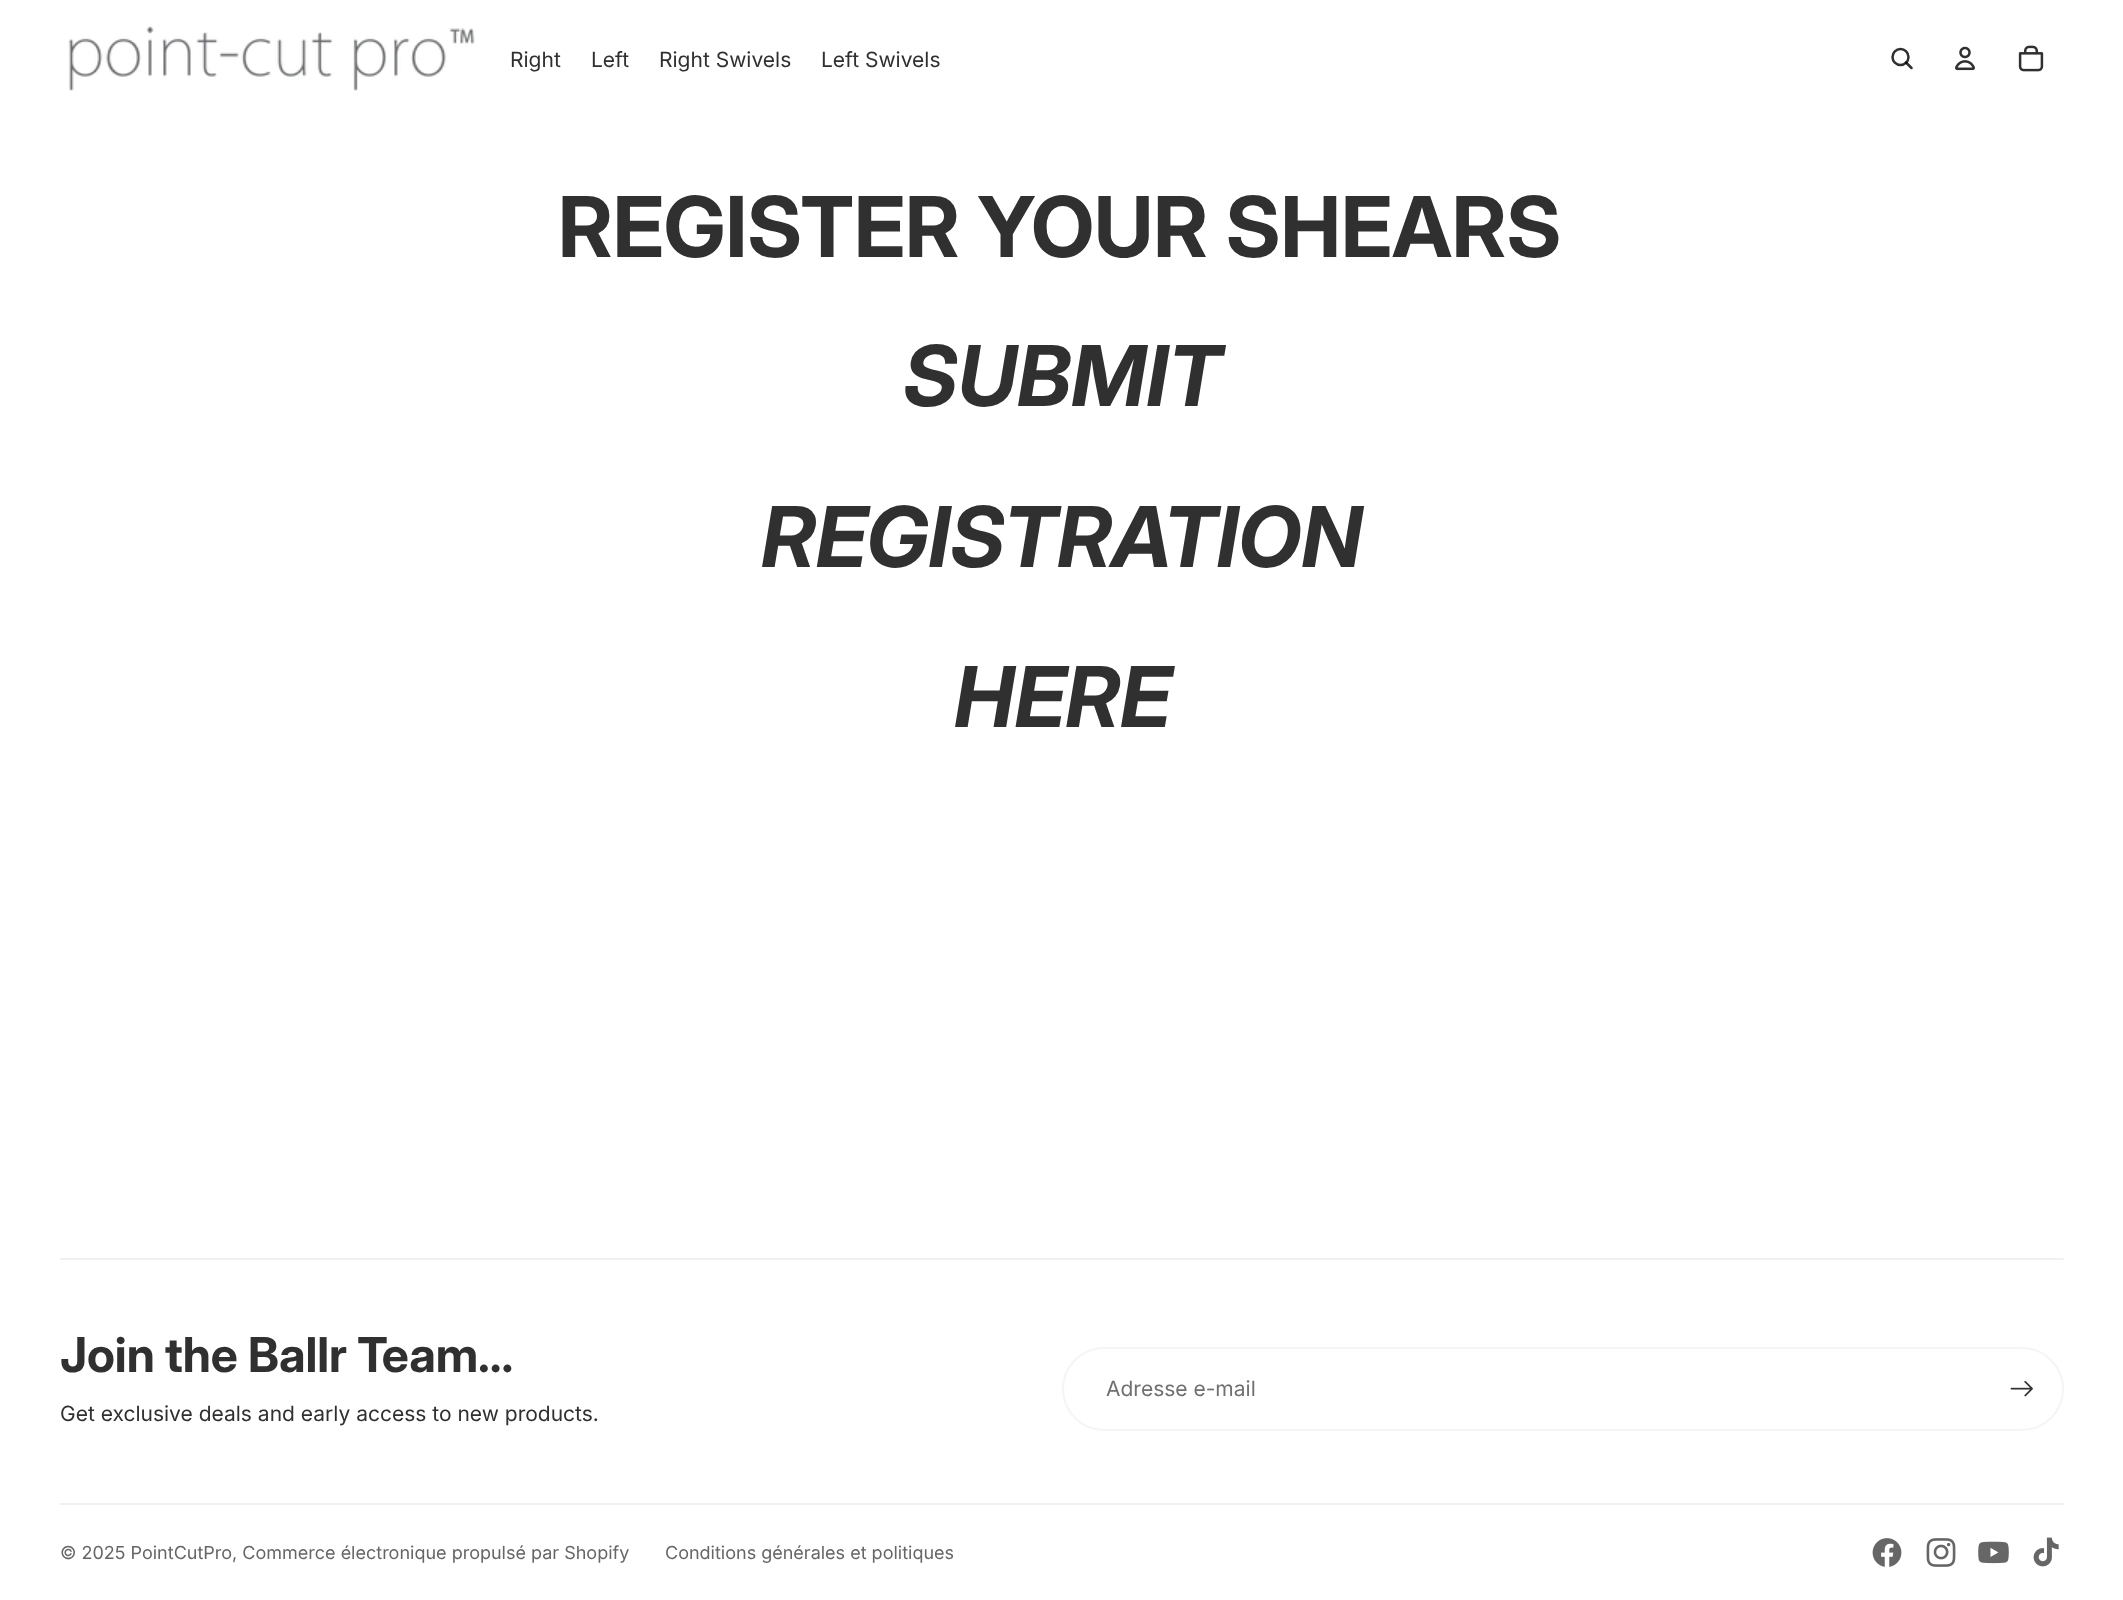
async function draw(canvas) {
  canvas.width = 2123
  canvas.height = 1600
  const ctx = canvas.getContext('2d')
  ctx.miterLimit = 4
  ctx.fontKerning = 'normal'
  async function loadImage(src) {
    const img = new Image()
    img.src = src
    await img.decode()
    return img
  }

  ctx.fillStyle = '#fff'
  ctx.fillRect(0, 0, 2123, 1600)
  ctx.drawImage(await loadImage('image0.png'), 68, 26, 407, 65)
  ctx.font = '21px Inter'
  ctx.fillStyle = '#303030'
  ctx.fillText('Right', 510, 67)
  ctx.fillText('Left', 591, 67)
  ctx.fillText('Right Swivels', 659, 67)
  ctx.fillText('Left Swivels', 821, 67)
  ctx.beginPath()
  ctx.arc(1900.5, 57, 8, 0, 2 * Math.PI)
  ctx.strokeStyle = '#303030'
  ctx.lineWidth = 2.5
  ctx.stroke()
  ctx.beginPath()
  ctx.moveTo(1906, 62.5)
  ctx.lineTo(1911.5, 68)
  ctx.strokeStyle = '#000000cf'
  ctx.lineCap = 'round'
  ctx.lineJoin = 'round'
  ctx.stroke()
  ctx.drawImage(await loadImage('image1.png'), 1955, 46, 20, 25)
  ctx.drawImage(await loadImage('image2.png'), 2018, 45, 26, 27)
  ctx.font = 'bold 84px Inter'
  ctx.fillText('REGISTER YOUR SHEARS', 558, 257)
  ctx.font = 'italic bold 84px Inter'
  ctx.fillText('SUBMIT', 903, 406)
  ctx.fillText('REGISTRATION', 761, 567)
  ctx.fillText('HERE', 954, 727)
  ctx.fillStyle = '#f0f0f0'
  ctx.beginPath()
  ctx.moveTo(2064, 1258.5)
  ctx.lineTo(2064, 1260)
  ctx.lineTo(2062.5, 1258.5)
  ctx.closePath()
  ctx.fill()
  ctx.fillStyle = '#0000000f'
  ctx.beginPath()
  ctx.moveTo(2064, 1260)
  ctx.lineTo(60, 1260)
  ctx.lineTo(60, 1258)
  ctx.lineTo(2062, 1258)
  ctx.closePath()
  ctx.fill()
  ctx.font = 'bold 48px Inter'
  ctx.fillStyle = '#303030'
  ctx.fillText('Join the Ballr Team...', 60, 1372)
  ctx.font = '21px Inter'
  ctx.fillText('Get exclusive deals and early access to new products.', 60, 1421)
  ctx.beginPath()
  ctx.roundRect(1063, 1348, 1000, 82, 41)
  ctx.strokeStyle = '#f5f5f5'
  ctx.lineWidth = 2
  ctx.lineJoin = 'miter'
  ctx.stroke()
  ctx.fillStyle = '#707070'
  ctx.fillText('Adresse e-mail', 1106, 1396)
  ctx.drawImage(await loadImage('image3.png'), 2010, 1380, 23, 17)
  ctx.fillStyle = '#f0f0f0'
  ctx.fillRect(60, 1503, 2004, 2)
  ctx.font = '18px Inter'
  ctx.fillStyle = '#666'
  ctx.fillText('© 2025 PointCutPro, Commerce électronique propulsé par Shopify', 60, 1559)
  ctx.fillText('Conditions générales et politiques', 665, 1559)
  ctx.drawImage(await loadImage('image4.png'), 1872, 1538, 30, 29)
  ctx.drawImage(await loadImage('image5.png'), 1926, 1538, 30, 29)
  ctx.drawImage(await loadImage('image6.png'), 1978, 1541, 31, 23)
  ctx.drawImage(await loadImage('image7.png'), 2033, 1537, 26, 30)
}

draw(document.querySelector('canvas'))
